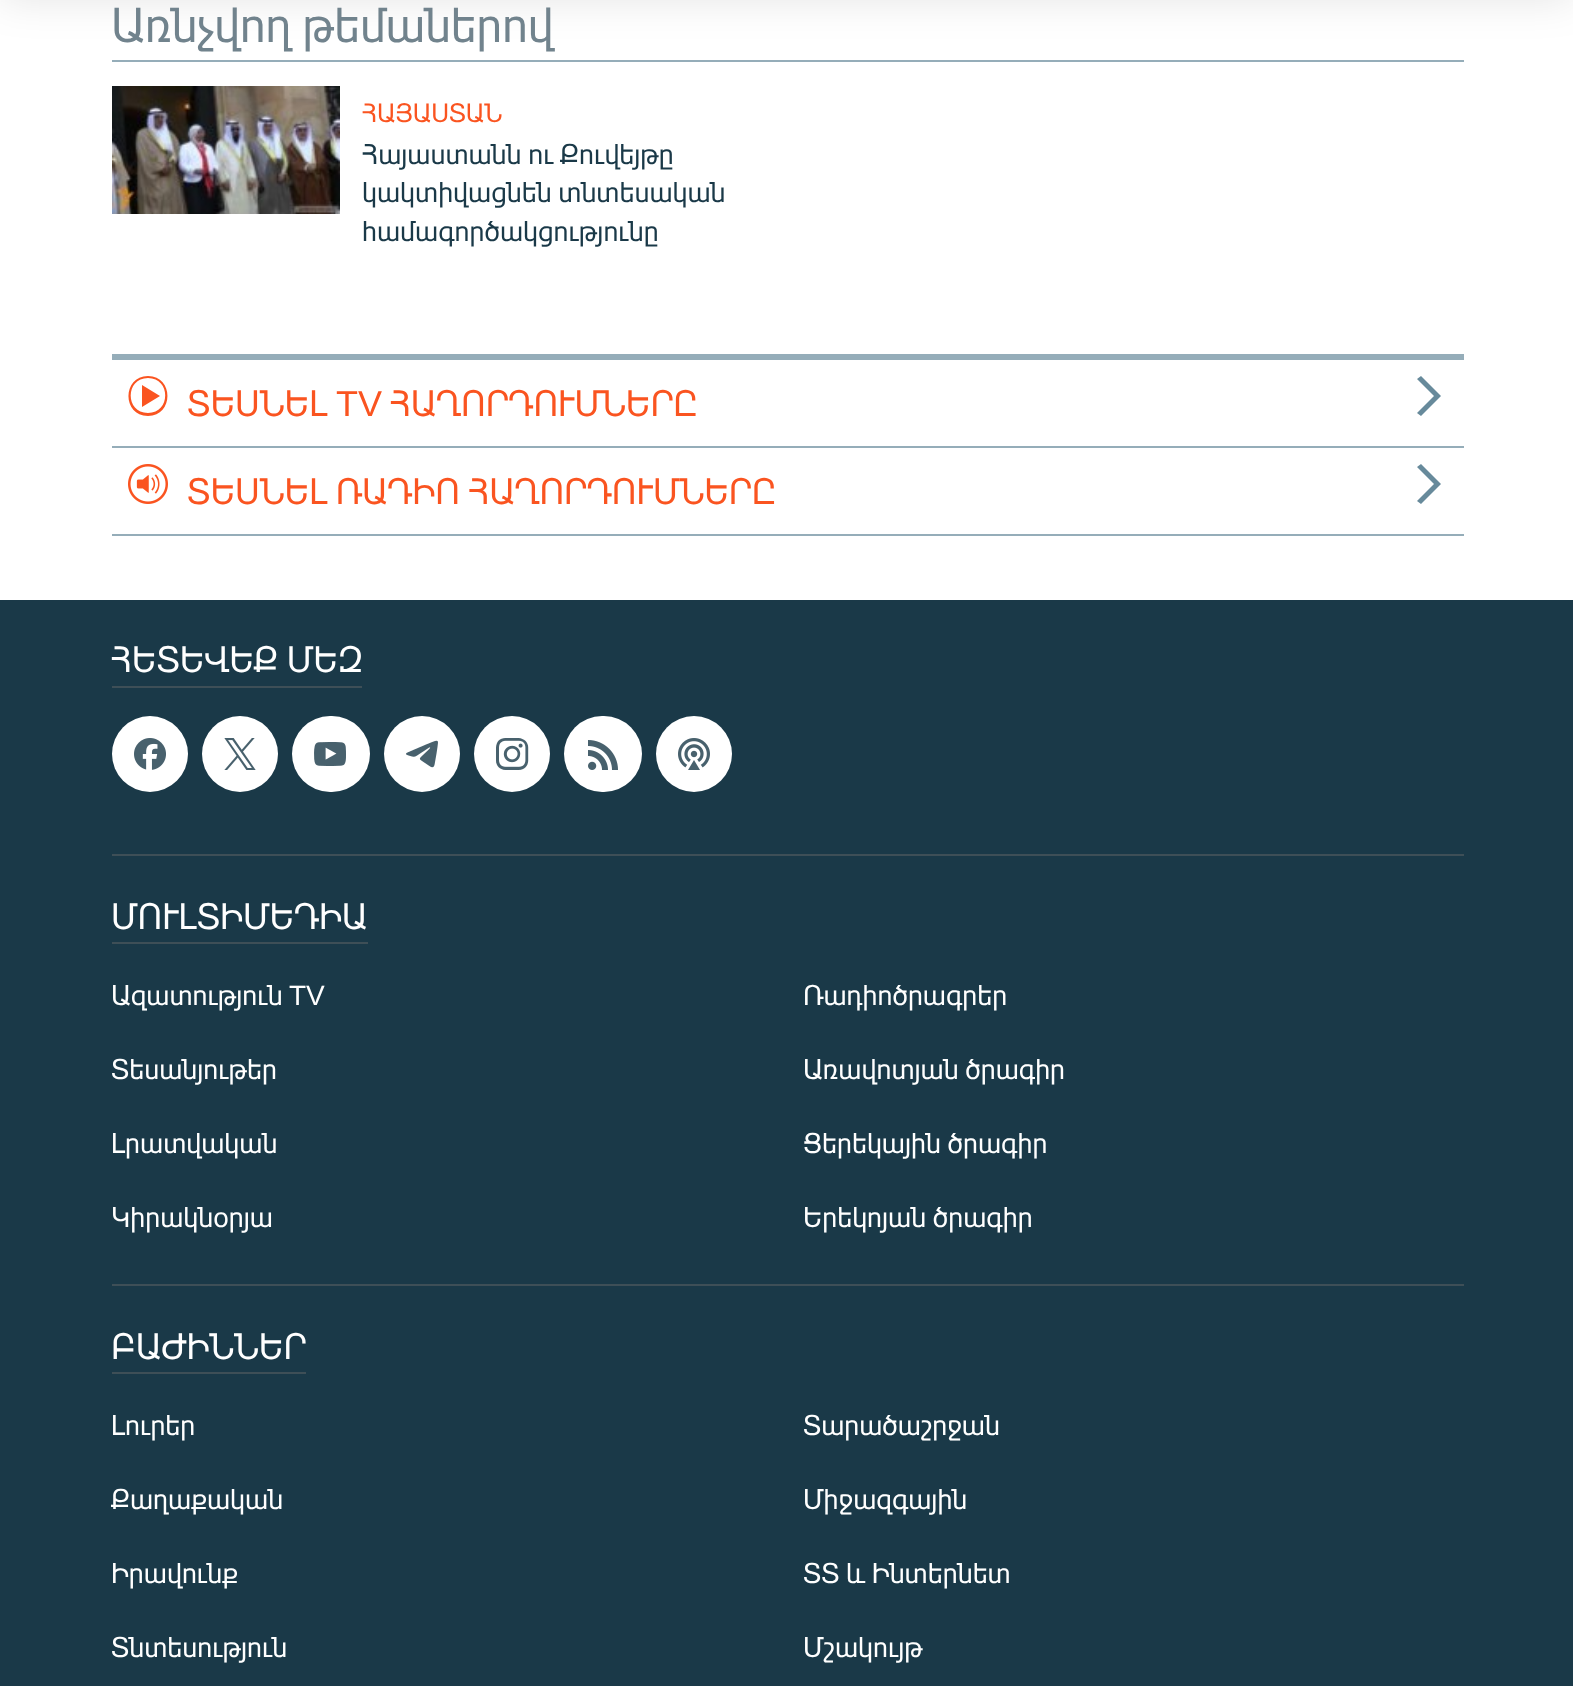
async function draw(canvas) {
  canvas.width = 1573
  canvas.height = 1686
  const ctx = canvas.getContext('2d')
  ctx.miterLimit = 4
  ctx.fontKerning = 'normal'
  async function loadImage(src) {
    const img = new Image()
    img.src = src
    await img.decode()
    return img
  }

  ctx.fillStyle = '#fff'
  ctx.fillRect(0, 0, 1573, 1686)
  ctx.fillStyle = '#95adb9'
  ctx.fillRect(112, 60, 1352, 2)
  ctx.fillStyle = '#0000001a'
  ctx.filter = 'blur(20px)'
  ctx.beginPath()
  ctx.rect(0, -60, 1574, 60)
  ctx.fill()
  ctx.filter = 'none'
  ctx.font = '48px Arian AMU'
  ctx.fillStyle = '#71838d'
  ctx.fillText('Առնչվող թեմաներով', 111, 42)
  ctx.drawImage(await loadImage('image0.png'), 112, 86, 228, 128)
  ctx.font = '26px Arian AMU'
  ctx.fillStyle = '#fa5420'
  ctx.fillText('ՀԱՅԱՍՏԱՆ', 362, 122)
  ctx.font = '28px Arian AMU'
  ctx.fillStyle = '#1a3948'
  ctx.fillText('Հայաստանն ու Քուվեյթը', 362, 164)
  ctx.fillText('կակտիվացնեն տնտեսական', 362, 202)
  ctx.fillText('համագործակցությունը', 362, 241)
  ctx.fillStyle = '#95adb9'
  ctx.fillRect(112, 354, 1352, 6)
  ctx.fillRect(112, 446, 1352, 2)
  ctx.fillStyle = '#fa5420'
  ctx.beginPath()
  ctx.moveTo(142, 407)
  ctx.lineTo(160, 396)
  ctx.lineTo(142, 385)
  ctx.closePath()
  ctx.moveTo(148, 378)
  ctx.bezierCurveTo(171, 378, 171, 413, 148, 413)
  ctx.bezierCurveTo(125, 413, 125, 378, 148, 378)
  ctx.closePath()
  ctx.moveTo(148, 376)
  ctx.bezierCurveTo(122, 376, 122, 416, 148, 416)
  ctx.bezierCurveTo(174, 416, 174, 376, 148, 376)
  ctx.closePath()
  ctx.fill()
  ctx.font = '36px Arian AMU'
  ctx.fillText('ՏԵՍՆԵԼ', 187, 416)
  ctx.font = '36px Liberation Sans'
  ctx.fillText('TV', 336, 416)
  ctx.font = '36px Arian AMU'
  ctx.fillText('ՀԱՂՈՐԴՈՒՄՆԵՐԸ', 390, 416)
  ctx.fillStyle = '#678a9b'
  ctx.beginPath()
  ctx.moveTo(1421, 416)
  ctx.lineTo(1441, 396)
  ctx.lineTo(1421, 376)
  ctx.lineTo(1417, 379)
  ctx.lineTo(1434, 396)
  ctx.lineTo(1417, 413)
  ctx.closePath()
  ctx.fill()
  ctx.fillStyle = '#95adb9'
  ctx.fillRect(112, 534, 1352, 2)
  ctx.drawImage(await loadImage('image1.png'), 128, 464, 40, 40)
  ctx.fillStyle = '#fa5420'
  ctx.fillText('ՏԵՍՆԵԼ ՌԱԴԻՈ ՀԱՂՈՐԴՈՒՄՆԵՐԸ', 187, 504)
  ctx.fillStyle = '#678a9b'
  ctx.beginPath()
  ctx.moveTo(1421, 504)
  ctx.lineTo(1441, 484)
  ctx.lineTo(1421, 464)
  ctx.lineTo(1417, 467)
  ctx.lineTo(1434, 484)
  ctx.lineTo(1417, 501)
  ctx.closePath()
  ctx.fill()
  ctx.fillStyle = '#1a3948'
  ctx.fillRect(0, 600, 1573, 1086)
  ctx.fillStyle = '#3e4f57'
  ctx.fillRect(112, 686, 250, 2)
  ctx.fillStyle = '#fff'
  ctx.fillText('ՀԵՏԵՎԵՔ ՄԵԶ', 111, 672)
  ctx.beginPath()
  ctx.arc(150, 754, 38, 0, 2 * Math.PI)
  ctx.fill()
  ctx.drawImage(await loadImage('image2.png'), 134, 738, 32, 32)
  ctx.beginPath()
  ctx.arc(240, 754, 38, 0, 2 * Math.PI)
  ctx.fill()
  ctx.drawImage(await loadImage('image3.png'), 224, 738, 32, 32)
  ctx.beginPath()
  ctx.roundRect(292, 716, 78, 76, 38)
  ctx.fill()
  ctx.drawImage(await loadImage('image4.png'), 314, 742, 32, 24)
  ctx.beginPath()
  ctx.arc(422, 754, 38, 0, 2 * Math.PI)
  ctx.fill()
  ctx.drawImage(await loadImage('image5.png'), 406, 740, 32, 28)
  ctx.beginPath()
  ctx.arc(512, 754, 38, 0, 2 * Math.PI)
  ctx.fill()
  ctx.drawImage(await loadImage('image6.png'), 496, 738, 33, 32)
  ctx.beginPath()
  ctx.roundRect(564, 716, 78, 76, 38)
  ctx.fill()
  ctx.drawImage(await loadImage('image7.png'), 588, 740, 30, 30)
  ctx.beginPath()
  ctx.arc(694, 754, 38, 0, 2 * Math.PI)
  ctx.fill()
  ctx.drawImage(await loadImage('image8.png'), 678, 738, 32, 32)
  ctx.fillStyle = '#3e4f57'
  ctx.fillRect(112, 854, 1352, 2)
  ctx.fillRect(112, 942, 256, 2)
  ctx.fillStyle = '#fff'
  ctx.fillText('ՄՈՒԼՏԻՄԵԴԻԱ', 111, 929)
  ctx.font = '28px Arian AMU'
  ctx.fillText('Ազատություն', 111, 1005)
  ctx.font = '28px Liberation Sans'
  ctx.fillText('TV', 289, 1005)
  ctx.font = '28px Arian AMU'
  ctx.fillText('Ռադիոծրագրեր', 803, 1005)
  ctx.fillText('Տեսանյութեր', 111, 1079)
  ctx.fillText('Առավոտյան ծրագիր', 803, 1079)
  ctx.fillText('Լրատվական', 111, 1153)
  ctx.fillText('Ցերեկային ծրագիր', 803, 1153)
  ctx.fillText('Կիրակնօրյա', 111, 1227)
  ctx.fillText('Երեկոյան ծրագիր', 803, 1227)
  ctx.fillStyle = '#3e4f57'
  ctx.fillRect(112, 1284, 1352, 2)
  ctx.fillRect(112, 1372, 194, 2)
  ctx.font = '36px Arian AMU'
  ctx.fillStyle = '#fff'
  ctx.fillText('ԲԱԺԻՆՆԵՐ', 111, 1359)
  ctx.font = '28px Arian AMU'
  ctx.fillText('Լուրեր', 111, 1435)
  ctx.fillText('Տարածաշրջան', 803, 1435)
  ctx.fillText('Քաղաքական', 111, 1509)
  ctx.fillText('Միջազգային', 803, 1509)
  ctx.fillText('Իրավունք', 111, 1583)
  ctx.fillText('ՏՏ և Ինտերնետ', 803, 1583)
  ctx.fillText('Տնտեսություն', 111, 1657)
  ctx.fillText('Մշակույթ', 803, 1657)
}

draw(document.querySelector('canvas'))
